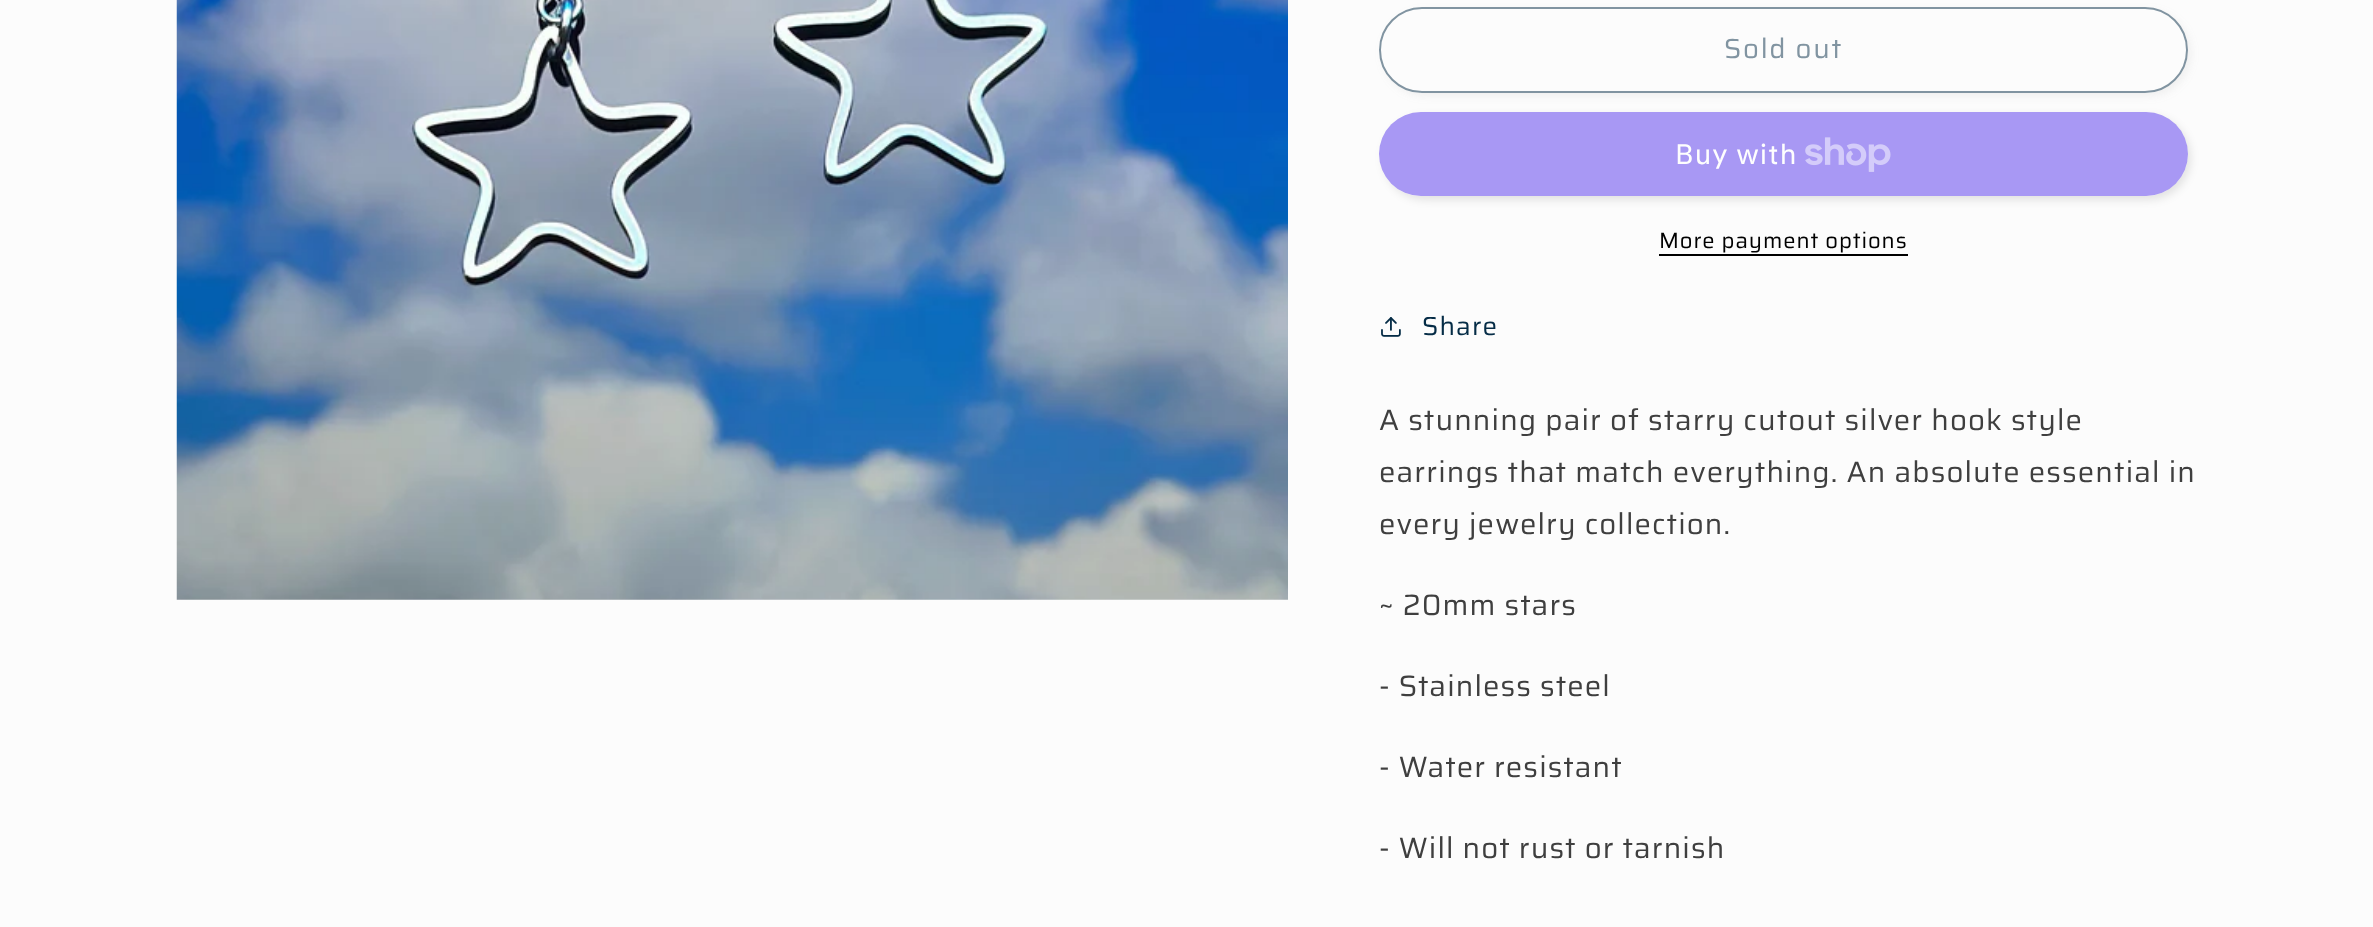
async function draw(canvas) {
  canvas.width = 2373
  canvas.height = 927
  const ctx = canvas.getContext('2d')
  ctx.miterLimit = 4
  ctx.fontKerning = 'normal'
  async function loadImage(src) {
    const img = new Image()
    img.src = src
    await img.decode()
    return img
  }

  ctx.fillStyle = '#fcfcfc'
  ctx.fillRect(0, 0, 2373, 927)
  ctx.drawImage(await loadImage('image0.png'), 176, 0, 1112, 600)
  ctx.save()
  ctx.beginPath()
  ctx.moveTo(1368, 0)
  ctx.lineTo(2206, 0)
  ctx.lineTo(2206, 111)
  ctx.lineTo(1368, 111)
  ctx.closePath()
  ctx.moveTo(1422, 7)
  ctx.lineTo(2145, 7)
  ctx.bezierCurveTo(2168.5, 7, 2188, 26.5, 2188, 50)
  ctx.bezierCurveTo(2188, 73.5, 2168.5, 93, 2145, 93)
  ctx.lineTo(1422, 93)
  ctx.bezierCurveTo(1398.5, 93, 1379, 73.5, 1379, 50)
  ctx.bezierCurveTo(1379, 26.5, 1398.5, 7, 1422, 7)
  ctx.closePath()
  ctx.clip('evenodd')
  ctx.fillStyle = '#7e7e7e1a'
  ctx.filter = 'blur(4.5px)'
  ctx.beginPath()
  ctx.roundRect(1383, 11, 808, 85, 42.5)
  ctx.fill()
  ctx.filter = 'none'
  ctx.restore()
  ctx.beginPath()
  ctx.roundRect(1380, 8, 807, 84, 42)
  ctx.strokeStyle = '#fcfcfc'
  ctx.lineWidth = 2
  ctx.stroke()
  ctx.beginPath()
  ctx.roundRect(1380, 8, 807, 84, 42)
  ctx.strokeStyle = '#8194a1'
  ctx.stroke()
  ctx.letterSpacing = '1.75px'
  ctx.font = '27.5px Saira'
  ctx.fillStyle = '#8194a1'
  ctx.fillText('Sold out', 1724, 58)
  ctx.save()
  ctx.beginPath()
  ctx.moveTo(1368, 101)
  ctx.lineTo(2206, 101)
  ctx.lineTo(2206, 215)
  ctx.lineTo(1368, 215)
  ctx.closePath()
  ctx.moveTo(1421, 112)
  ctx.lineTo(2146, 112)
  ctx.bezierCurveTo(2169, 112, 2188, 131, 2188, 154)
  ctx.bezierCurveTo(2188, 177, 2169, 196, 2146, 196)
  ctx.lineTo(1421, 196)
  ctx.bezierCurveTo(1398, 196, 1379, 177, 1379, 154)
  ctx.bezierCurveTo(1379, 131, 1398, 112, 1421, 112)
  ctx.closePath()
  ctx.clip('evenodd')
  ctx.fillStyle = '#0000001a'
  ctx.filter = 'blur(4.5px)'
  ctx.beginPath()
  ctx.roundRect(1383, 116, 808, 84, 42)
  ctx.fill()
  ctx.filter = 'none'
  ctx.restore()
  ctx.fillStyle = '#5433eb80'
  ctx.beginPath()
  ctx.roundRect(1379, 112, 809, 84, 42)
  ctx.fill()
  ctx.letterSpacing = '1.1px'
  ctx.font = '28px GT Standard'
  ctx.fillStyle = '#fefefe'
  ctx.fillText('Buy with', 1675, 164)
  ctx.drawImage(await loadImage('image1.png'), 1805, 137, 86, 35)
  ctx.letterSpacing = '0.9px'
  ctx.font = '22px Saira'
  ctx.fillStyle = '#000'
  ctx.fillText('More payment options', 1659, 248)
  ctx.fillRect(1659, 254, 249, 2)
  ctx.drawImage(await loadImage('image2.png'), 1381, 317, 20, 20)
  ctx.letterSpacing = '1.1px'
  ctx.font = '26px Saira'
  ctx.fillStyle = '#052c46'
  ctx.fillText('Share', 1422, 335)
  ctx.font = '29.4px Saira'
  ctx.fillStyle = '#3f3f3f'
  ctx.fillText('A stunning pair of starry cutout silver hook style', 1379, 430)
  ctx.fillText('earrings that match everything. An absolute essential in', 1379, 482)
  ctx.fillText('every jewelry collection.', 1379, 534)
  ctx.fillText('~ 20mm stars', 1379, 615)
  ctx.fillText('- Stainless steel', 1379, 696)
  ctx.fillText('- Water resistant', 1379, 777)
  ctx.fillText('- Will not rust or tarnish', 1379, 858)
}

draw(document.querySelector('canvas'))
